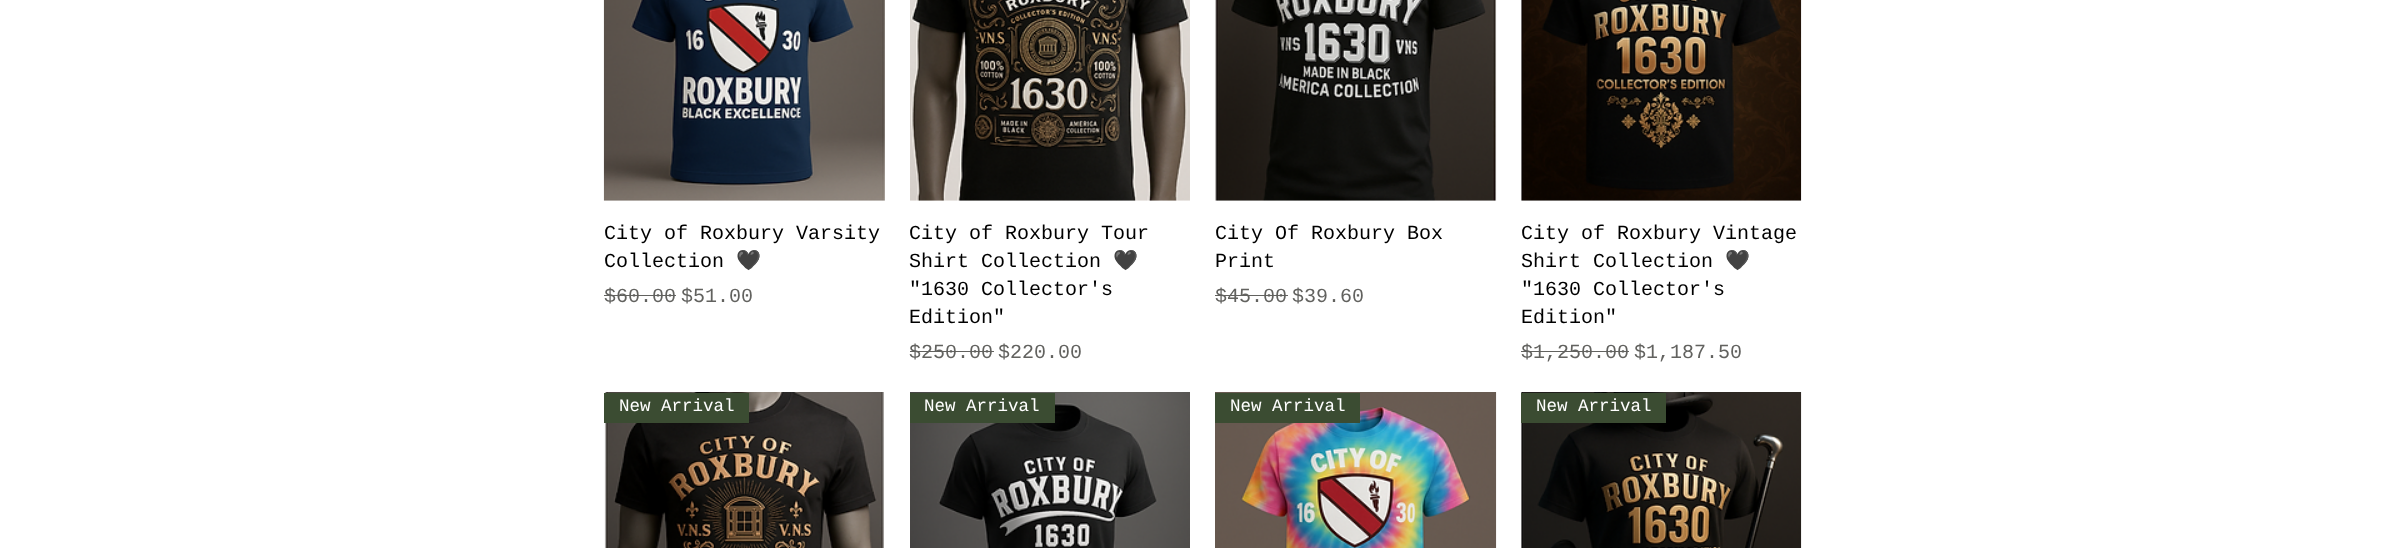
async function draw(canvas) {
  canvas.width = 2405
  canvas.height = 548
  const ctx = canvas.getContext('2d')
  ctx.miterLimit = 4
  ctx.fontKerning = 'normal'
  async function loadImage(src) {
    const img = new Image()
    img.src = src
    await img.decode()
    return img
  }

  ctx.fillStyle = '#fff'
  ctx.fillRect(0, 0, 2405, 548)
  ctx.drawImage(await loadImage('image0.png'), 603, 0, 282, 201)
  ctx.font = '20px Liberation Mono'
  ctx.fillStyle = '#000'
  ctx.fillText('City of Roxbury Varsity', 604, 239)
  ctx.fillText('Collection', 604, 267)
  ctx.font = '20px Noto Color Emoji'
  ctx.fillText('🖤', 736, 267)
  ctx.font = '20px Liberation Mono'
  ctx.fillStyle = '#62625f'
  ctx.fillText('$60.00', 604, 302)
  ctx.fillRect(604, 295, 72, 1)
  ctx.fillText('$51.00', 681, 302)
  ctx.drawImage(await loadImage('image1.png'), 910, 0, 280, 201)
  ctx.fillStyle = '#000'
  ctx.fillText('City of Roxbury Tour', 909, 239)
  ctx.fillText('Shirt Collection', 909, 267)
  ctx.font = '20px Noto Color Emoji'
  ctx.fillText('🖤', 1113, 267)
  ctx.font = '20px Liberation Mono'
  ctx.fillText('"1630 Collector\'s', 909, 295)
  ctx.fillText('Edition"', 909, 323)
  ctx.fillStyle = '#62625f'
  ctx.fillText('$250.00', 909, 358)
  ctx.fillRect(910, 351, 84, 1)
  ctx.fillText('$220.00', 998, 358)
  ctx.drawImage(await loadImage('image2.png'), 1215, 0, 282, 201)
  ctx.fillStyle = '#000'
  ctx.fillText('City Of Roxbury Box', 1215, 239)
  ctx.fillText('Print', 1215, 267)
  ctx.fillStyle = '#62625f'
  ctx.fillText('$45.00', 1215, 302)
  ctx.fillRect(1215, 295, 73, 1)
  ctx.fillText('$39.60', 1292, 302)
  ctx.drawImage(await loadImage('image3.png'), 1521, 0, 281, 201)
  ctx.fillStyle = '#000'
  ctx.fillText('City of Roxbury Vintage', 1521, 239)
  ctx.fillText('Shirt Collection', 1521, 267)
  ctx.font = '20px Noto Color Emoji'
  ctx.fillText('🖤', 1725, 267)
  ctx.font = '20px Liberation Mono'
  ctx.fillText('"1630 Collector\'s', 1521, 295)
  ctx.fillText('Edition"', 1521, 323)
  ctx.fillStyle = '#62625f'
  ctx.fillText('$1,250.00', 1521, 358)
  ctx.fillRect(1521, 351, 108, 1)
  ctx.fillText('$1,187.50', 1634, 358)
  ctx.drawImage(await loadImage('image4.png'), 604, 392, 280, 156)
  ctx.fillStyle = '#3b4c32'
  ctx.fillRect(604, 393, 145, 30)
  ctx.font = '17.5px Liberation Mono'
  ctx.fillStyle = '#fff'
  ctx.fillText('New Arrival', 619, 411)
  ctx.drawImage(await loadImage('image5.png'), 910, 392, 280, 156)
  ctx.fillStyle = '#3b4c32'
  ctx.fillRect(910, 393, 145, 30)
  ctx.fillStyle = '#fff'
  ctx.fillText('New Arrival', 924, 411)
  ctx.drawImage(await loadImage('image6.png'), 1215, 392, 282, 156)
  ctx.fillStyle = '#3b4c32'
  ctx.fillRect(1215, 393, 145, 30)
  ctx.fillStyle = '#fff'
  ctx.fillText('New Arrival', 1230, 411)
  ctx.drawImage(await loadImage('image7.png'), 1521, 392, 281, 156)
  ctx.fillStyle = '#3b4c32'
  ctx.fillRect(1521, 393, 145, 30)
  ctx.fillStyle = '#fff'
  ctx.fillText('New Arrival', 1536, 411)
}

draw(document.querySelector('canvas'))
